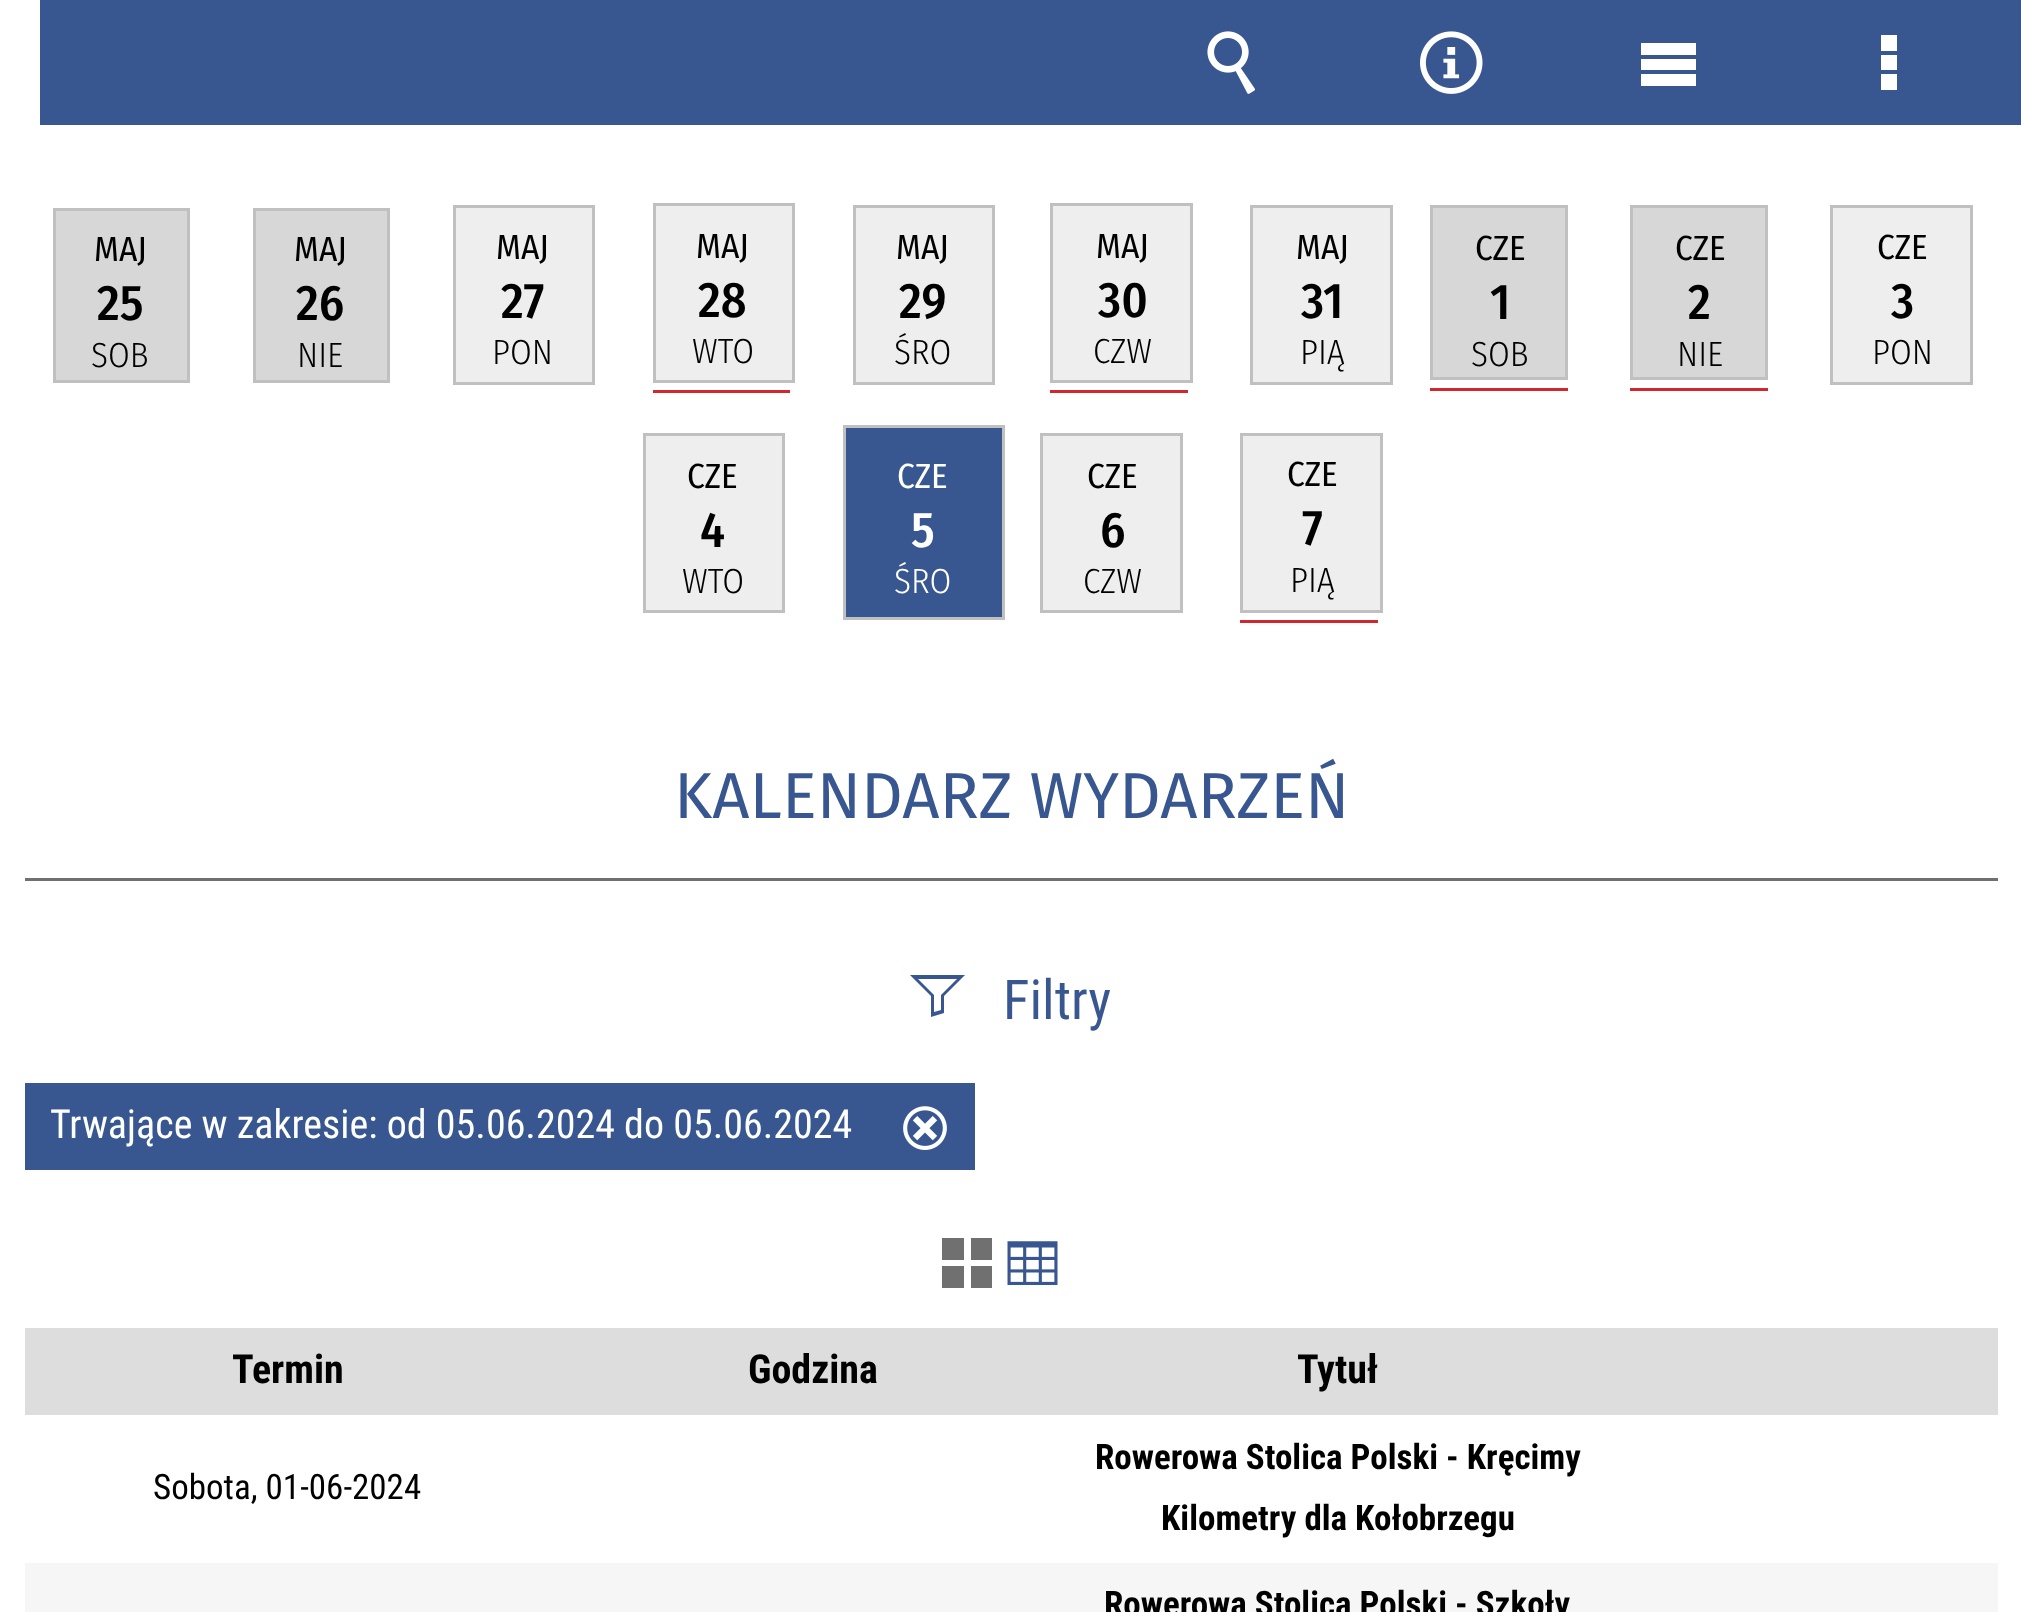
async function draw(canvas) {
  canvas.width = 2021
  canvas.height = 1612
  const ctx = canvas.getContext('2d')
  ctx.miterLimit = 4
  ctx.fontKerning = 'normal'
  async function loadImage(src) {
    const img = new Image()
    img.src = src
    await img.decode()
    return img
  }

  ctx.fillStyle = '#fff'
  ctx.fillRect(0, 0, 2021, 1612)
  ctx.fillStyle = '#385790'
  ctx.fillRect(40, 0, 1981, 125)
  ctx.drawImage(await loadImage('image0.png'), 1207, 31, 48, 63)
  ctx.drawImage(await loadImage('image1.png'), 1420, 31, 63, 63)
  ctx.fillStyle = '#fff'
  ctx.beginPath()
  ctx.moveTo(1641, 43)
  ctx.lineTo(1641, 55)
  ctx.lineTo(1696, 55)
  ctx.lineTo(1696, 43)
  ctx.closePath()
  ctx.moveTo(1641, 59)
  ctx.lineTo(1641, 70)
  ctx.lineTo(1696, 70)
  ctx.lineTo(1696, 59)
  ctx.closePath()
  ctx.moveTo(1641, 74)
  ctx.lineTo(1641, 86)
  ctx.lineTo(1696, 86)
  ctx.lineTo(1696, 74)
  ctx.closePath()
  ctx.fill()
  ctx.beginPath()
  ctx.moveTo(1881, 35)
  ctx.lineTo(1881, 51)
  ctx.lineTo(1897, 51)
  ctx.lineTo(1897, 35)
  ctx.closePath()
  ctx.moveTo(1881, 55)
  ctx.lineTo(1881, 70)
  ctx.lineTo(1897, 70)
  ctx.lineTo(1897, 55)
  ctx.closePath()
  ctx.moveTo(1881, 74)
  ctx.lineTo(1881, 90)
  ctx.lineTo(1897, 90)
  ctx.lineTo(1897, 74)
  ctx.closePath()
  ctx.fill()
  ctx.fillStyle = '#d7d7d7'
  ctx.beginPath()
  ctx.rect(54.5, 209.5, 134, 172)
  ctx.fill()
  ctx.strokeStyle = '#c0c0c0'
  ctx.lineWidth = 3
  ctx.stroke()
  ctx.font = '35px Fira Sans Condensed'
  ctx.fillStyle = '#000'
  ctx.fillText('MAJ', 94, 261)
  ctx.font = '500 50px Fira Sans Condensed'
  ctx.fillText('25', 97, 320)
  ctx.font = '300 35px Fira Sans Condensed'
  ctx.fillText('SOB', 91, 367)
  ctx.fillStyle = '#d7d7d7'
  ctx.beginPath()
  ctx.rect(254.5, 209.5, 134, 172)
  ctx.fill()
  ctx.stroke()
  ctx.font = '35px Fira Sans Condensed'
  ctx.fillStyle = '#000'
  ctx.fillText('MAJ', 294, 261)
  ctx.font = '500 50px Fira Sans Condensed'
  ctx.fillText('26', 296, 320)
  ctx.font = '300 35px Fira Sans Condensed'
  ctx.fillText('NIE', 297, 367)
  ctx.fillStyle = '#eee'
  ctx.beginPath()
  ctx.rect(454.5, 206.5, 139, 177)
  ctx.fill()
  ctx.stroke()
  ctx.font = '35px Fira Sans Condensed'
  ctx.fillStyle = '#000'
  ctx.fillText('MAJ', 496, 259)
  ctx.font = '500 50px Fira Sans Condensed'
  ctx.fillText('27', 501, 318)
  ctx.font = '300 35px Fira Sans Condensed'
  ctx.fillText('PON', 492, 364)
  ctx.fillStyle = '#eee'
  ctx.beginPath()
  ctx.rect(654.5, 204.5, 139, 177)
  ctx.fill()
  ctx.stroke()
  ctx.font = '35px Fira Sans Condensed'
  ctx.fillStyle = '#000'
  ctx.fillText('MAJ', 696, 258)
  ctx.font = '500 50px Fira Sans Condensed'
  ctx.fillText('28', 698, 317)
  ctx.font = '300 35px Fira Sans Condensed'
  ctx.fillText('WTO', 692, 363)
  ctx.fillStyle = '#d0282e'
  ctx.fillRect(653, 390, 137, 3)
  ctx.fillStyle = '#eee'
  ctx.beginPath()
  ctx.rect(854.5, 206.5, 139, 177)
  ctx.fill()
  ctx.stroke()
  ctx.font = '35px Fira Sans Condensed'
  ctx.fillStyle = '#000'
  ctx.fillText('MAJ', 896, 259)
  ctx.font = '500 50px Fira Sans Condensed'
  ctx.fillText('29', 899, 318)
  ctx.font = '300 35px Fira Sans Condensed'
  ctx.fillText('ŚRO', 894, 364)
  ctx.fillStyle = '#eee'
  ctx.beginPath()
  ctx.rect(1051.5, 204.5, 140, 177)
  ctx.fill()
  ctx.stroke()
  ctx.font = '35px Fira Sans Condensed'
  ctx.fillStyle = '#000'
  ctx.fillText('MAJ', 1096, 258)
  ctx.font = '500 50px Fira Sans Condensed'
  ctx.fillText('30', 1098, 317)
  ctx.font = '300 35px Fira Sans Condensed'
  ctx.fillText('CZW', 1093, 363)
  ctx.fillStyle = '#d0282e'
  ctx.fillRect(1050, 390, 138, 3)
  ctx.fillStyle = '#eee'
  ctx.beginPath()
  ctx.rect(1251.5, 206.5, 140, 177)
  ctx.fill()
  ctx.stroke()
  ctx.font = '35px Fira Sans Condensed'
  ctx.fillStyle = '#000'
  ctx.fillText('MAJ', 1296, 259)
  ctx.font = '500 50px Fira Sans Condensed'
  ctx.fillText('31', 1301, 318)
  ctx.font = '300 35px Fira Sans Condensed'
  ctx.fillText('PIĄ', 1300, 364)
  ctx.fillStyle = '#d7d7d7'
  ctx.beginPath()
  ctx.rect(1431.5, 206.5, 135, 172)
  ctx.fill()
  ctx.stroke()
  ctx.font = '35px Fira Sans Condensed'
  ctx.fillStyle = '#000'
  ctx.fillText('CZE', 1475, 260)
  ctx.font = '500 50px Fira Sans Condensed'
  ctx.fillText('1', 1490, 319)
  ctx.font = '300 35px Fira Sans Condensed'
  ctx.fillText('SOB', 1471, 366)
  ctx.fillStyle = '#d0282e'
  ctx.fillRect(1430, 388, 138, 3)
  ctx.fillStyle = '#d7d7d7'
  ctx.beginPath()
  ctx.rect(1631.5, 206.5, 135, 172)
  ctx.fill()
  ctx.stroke()
  ctx.font = '35px Fira Sans Condensed'
  ctx.fillStyle = '#000'
  ctx.fillText('CZE', 1675, 260)
  ctx.font = '500 50px Fira Sans Condensed'
  ctx.fillText('2', 1688, 319)
  ctx.font = '300 35px Fira Sans Condensed'
  ctx.fillText('NIE', 1677, 366)
  ctx.fillStyle = '#d0282e'
  ctx.fillRect(1630, 388, 138, 3)
  ctx.fillStyle = '#eee'
  ctx.beginPath()
  ctx.rect(1831.5, 206.5, 140, 177)
  ctx.fill()
  ctx.stroke()
  ctx.font = '35px Fira Sans Condensed'
  ctx.fillStyle = '#000'
  ctx.fillText('CZE', 1877, 259)
  ctx.font = '500 50px Fira Sans Condensed'
  ctx.fillText('3', 1891, 318)
  ctx.font = '300 35px Fira Sans Condensed'
  ctx.fillText('PON', 1872, 364)
  ctx.fillStyle = '#eee'
  ctx.beginPath()
  ctx.rect(644.5, 434.5, 139, 177)
  ctx.fill()
  ctx.stroke()
  ctx.font = '35px Fira Sans Condensed'
  ctx.fillStyle = '#000'
  ctx.fillText('CZE', 687, 488)
  ctx.font = '500 50px Fira Sans Condensed'
  ctx.fillText('4', 700, 547)
  ctx.font = '300 35px Fira Sans Condensed'
  ctx.fillText('WTO', 682, 593)
  ctx.fillStyle = '#385790'
  ctx.beginPath()
  ctx.rect(844.5, 426.5, 159, 192)
  ctx.fill()
  ctx.stroke()
  ctx.font = '35px Fira Sans Condensed'
  ctx.fillStyle = '#fff'
  ctx.fillText('CZE', 897, 488)
  ctx.font = '500 50px Fira Sans Condensed'
  ctx.fillText('5', 911, 547)
  ctx.font = '300 35px Fira Sans Condensed'
  ctx.fillText('ŚRO', 894, 593)
  ctx.fillStyle = '#eee'
  ctx.beginPath()
  ctx.rect(1041.5, 434.5, 140, 177)
  ctx.fill()
  ctx.stroke()
  ctx.font = '35px Fira Sans Condensed'
  ctx.fillStyle = '#000'
  ctx.fillText('CZE', 1087, 488)
  ctx.font = '500 50px Fira Sans Condensed'
  ctx.fillText('6', 1100, 547)
  ctx.font = '300 35px Fira Sans Condensed'
  ctx.fillText('CZW', 1083, 593)
  ctx.fillStyle = '#eee'
  ctx.beginPath()
  ctx.rect(1241.5, 434.5, 140, 177)
  ctx.fill()
  ctx.stroke()
  ctx.font = '35px Fira Sans Condensed'
  ctx.fillStyle = '#000'
  ctx.fillText('CZE', 1287, 486)
  ctx.font = '500 50px Fira Sans Condensed'
  ctx.fillText('7', 1302, 545)
  ctx.font = '300 35px Fira Sans Condensed'
  ctx.fillText('PIĄ', 1290, 592)
  ctx.fillStyle = '#d0282e'
  ctx.fillRect(1240, 620, 138, 3)
  ctx.fillStyle = '#707070'
  ctx.fillRect(25, 878, 1973, 3)
  ctx.font = '65px Fira Sans'
  ctx.fillStyle = '#385790'
  ctx.fillText('KALENDARZ WYDARZEŃ', 674, 818)
  ctx.beginPath()
  ctx.moveTo(957, 979)
  ctx.lineTo(918, 979)
  ctx.lineTo(934, 995)
  ctx.lineTo(934, 1012)
  ctx.lineTo(941, 1010)
  ctx.lineTo(941, 995)
  ctx.closePath()
  ctx.moveTo(965, 975)
  ctx.lineTo(944, 996)
  ctx.lineTo(944, 1013)
  ctx.lineTo(931, 1017)
  ctx.lineTo(931, 996)
  ctx.lineTo(910, 975)
  ctx.closePath()
  ctx.fill()
  ctx.font = '55px Roboto Condensed'
  ctx.fillText('Filtry', 1003, 1019)
  ctx.fillRect(25, 1083, 950, 87)
  ctx.font = '40px Roboto Condensed'
  ctx.fillStyle = '#fff'
  ctx.fillText('Trwające w zakresie: od 05.06.2024 do 05.06.2024', 50, 1138)
  ctx.drawImage(await loadImage('image2.png'), 903, 1106, 44, 44)
  ctx.fillStyle = '#707070'
  ctx.beginPath()
  ctx.moveTo(942, 1238)
  ctx.lineTo(942, 1260)
  ctx.lineTo(964, 1260)
  ctx.lineTo(964, 1238)
  ctx.closePath()
  ctx.moveTo(971, 1238)
  ctx.lineTo(971, 1260)
  ctx.lineTo(992, 1260)
  ctx.lineTo(992, 1238)
  ctx.closePath()
  ctx.moveTo(942, 1266)
  ctx.lineTo(942, 1288)
  ctx.lineTo(964, 1288)
  ctx.lineTo(964, 1266)
  ctx.closePath()
  ctx.moveTo(971, 1266)
  ctx.lineTo(971, 1288)
  ctx.lineTo(992, 1288)
  ctx.lineTo(992, 1266)
  ctx.closePath()
  ctx.fill()
  ctx.drawImage(await loadImage('image3.png'), 1007, 1241, 51, 44)
  ctx.fillStyle = '#ddd'
  ctx.fillRect(25, 1328, 1973, 87)
  ctx.font = 'bold 40px Roboto Condensed'
  ctx.fillStyle = '#000'
  ctx.fillText('Termin', 232, 1383)
  ctx.fillText('Godzina', 748, 1383)
  ctx.fillText('Tytuł', 1297, 1383)
  ctx.font = '35px Roboto Condensed'
  ctx.fillText('Sobota, 01-06-2024', 153, 1499)
  ctx.font = 'bold 35px Roboto Condensed'
  ctx.fillText('Rowerowa Stolica Polski - Kręcimy', 1095, 1469)
  ctx.fillText('Kilometry dla Kołobrzegu', 1161, 1530)
  ctx.fillStyle = '#f6f6f6'
  ctx.fillRect(25, 1563, 1973, 49)
  ctx.fillStyle = '#000'
  ctx.fillText('Rowerowa Stolica Polski - Szkoły', 1104, 1616)
}

draw(document.querySelector('canvas'))
